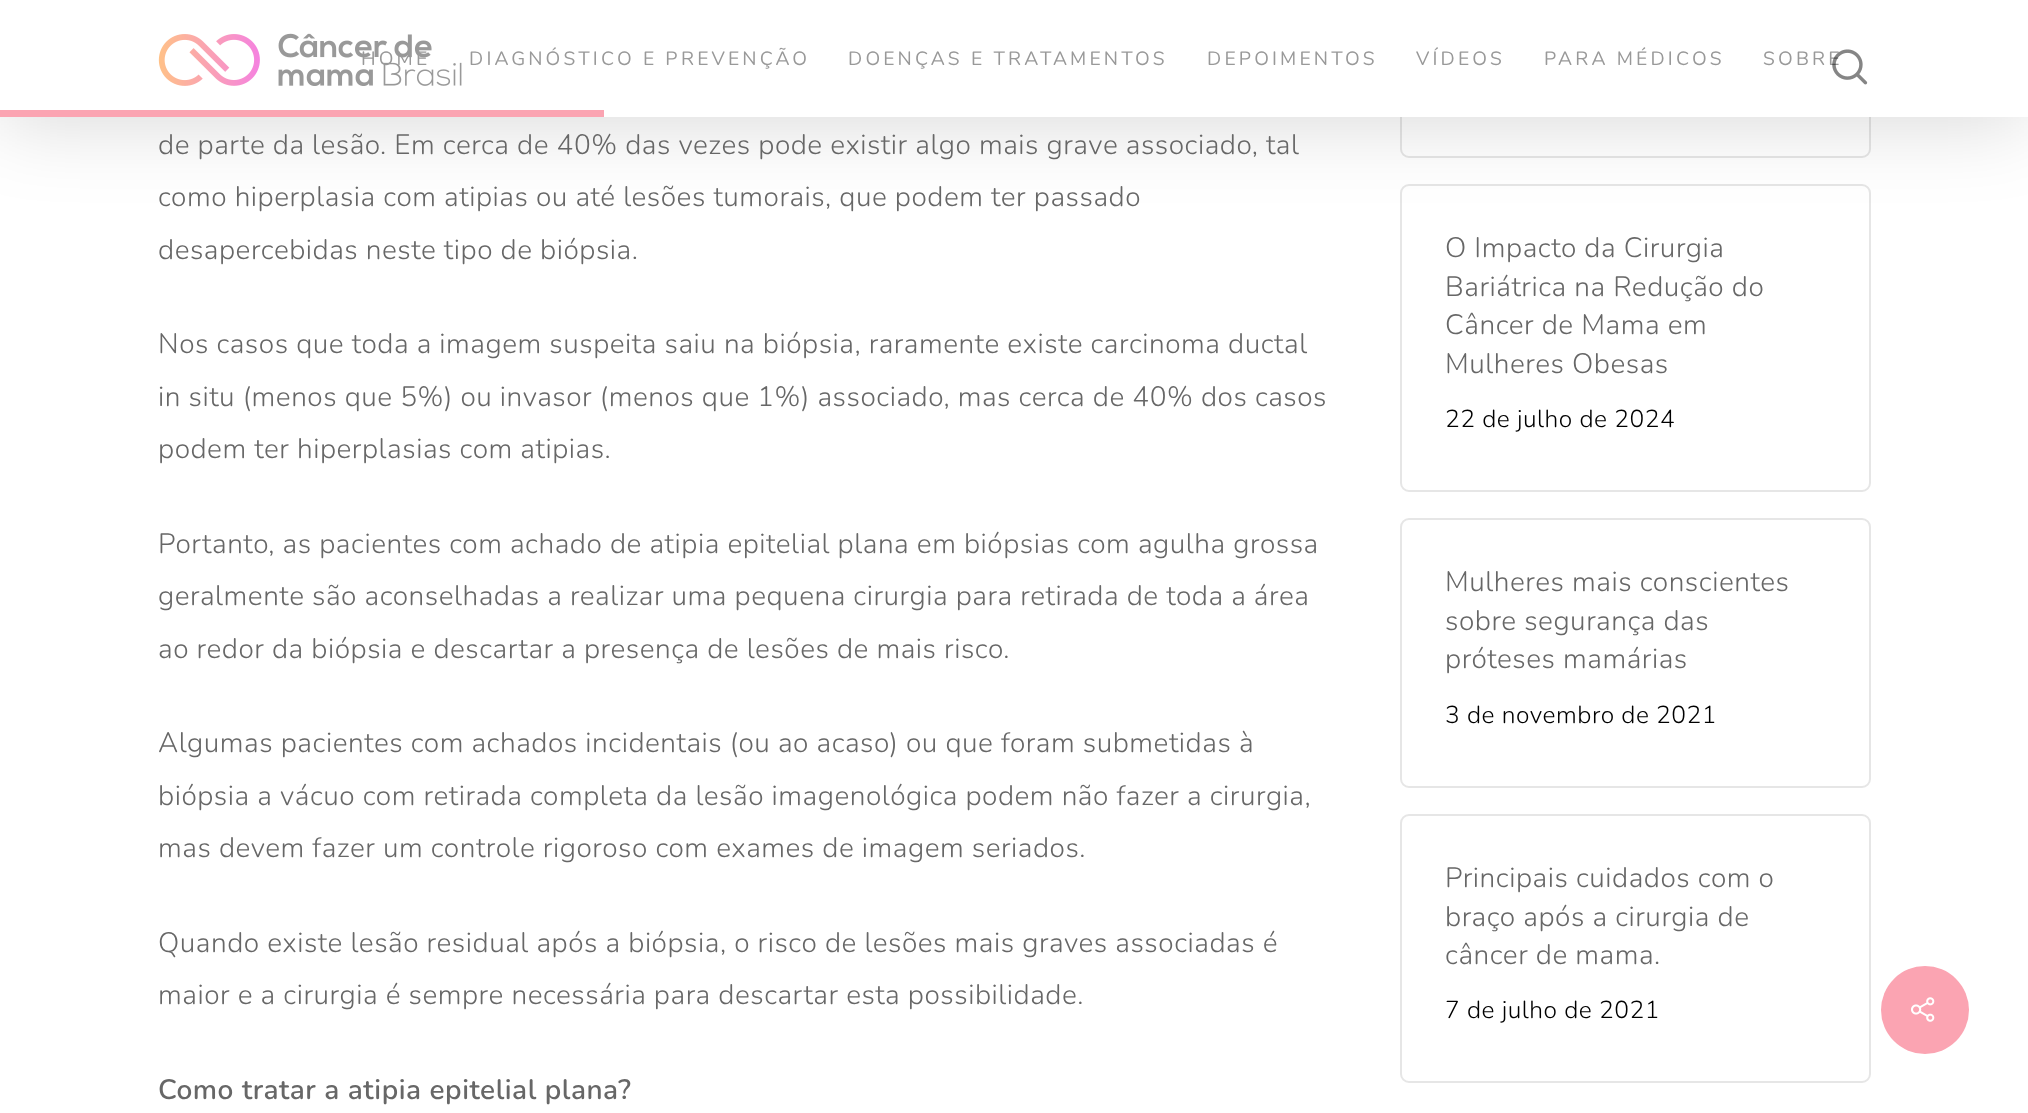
async function draw(canvas) {
  canvas.width = 2028
  canvas.height = 1113
  const ctx = canvas.getContext('2d')
  ctx.miterLimit = 4
  ctx.fontKerning = 'normal'
  async function loadImage(src) {
    const img = new Image()
    img.src = src
    await img.decode()
    return img
  }

  ctx.fillStyle = '#fff'
  ctx.fillRect(0, 0, 2028, 1113)
  ctx.beginPath()
  ctx.roundRect(1401, -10, 469, 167, 8)
  ctx.strokeStyle = '#e6e6e6'
  ctx.lineWidth = 2
  ctx.stroke()
  ctx.beginPath()
  ctx.roundRect(1401, 185, 469, 306, 8)
  ctx.stroke()
  ctx.fillStyle = '#00000026'
  ctx.filter = 'blur(39.5px)'
  ctx.beginPath()
  ctx.rect(0, -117, 2028, 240)
  ctx.fill()
  ctx.filter = 'none'
  ctx.fillStyle = '#fff'
  ctx.fillRect(0, 0, 2028, 117)
  ctx.drawImage(await loadImage('image0.png'), 158, 33, 304, 53)
  ctx.letterSpacing = '3.15px'
  ctx.font = '19.25px Nunito'
  ctx.fillStyle = '#999'
  ctx.fillText('HOME', 361, 65)
  ctx.fillText('DIAGNÓSTICO E PREVENÇÃO', 469, 65)
  ctx.fillText('DOENÇAS E TRATAMENTOS', 848, 65)
  ctx.fillText('DEPOIMENTOS', 1207, 65)
  ctx.fillText('VÍDEOS', 1416, 65)
  ctx.fillText('PARA MÉDICOS', 1544, 65)
  ctx.fillText('SOBRE', 1763, 65)
  ctx.drawImage(await loadImage('image1.png'), 1832, 49, 36, 36)
  ctx.fillStyle = '#fba4b2'
  ctx.fillRect(0, 110, 604, 7)
  ctx.letterSpacing = '0.53px'
  ctx.font = '300 28px Nunito'
  ctx.fillStyle = '#676767'
  ctx.fillText('de parte da lesão. Em cerca de 40% das vezes pode existir algo mais grave associado, tal', 158, 154)
  ctx.fillText('como hiperplasia com atipias ou até lesões tumorais, que podem ter passado', 158, 206)
  ctx.fillText('desapercebidas neste tipo de biópsia.', 158, 259)
  ctx.fillText('Nos casos que toda a imagem suspeita saiu na biópsia, raramente existe carcinoma ductal', 158, 353)
  ctx.fillText('in situ (menos que 5%) ou invasor (menos que 1%) associado, mas cerca de 40% dos casos', 158, 406)
  ctx.fillText('podem ter hiperplasias com atipias.', 158, 458)
  ctx.fillText('Portanto, as pacientes com achado de atipia epitelial plana em biópsias com agulha grossa', 158, 553)
  ctx.fillText('geralmente são aconselhadas a realizar uma pequena cirurgia para retirada de toda a área', 158, 605)
  ctx.fillText('ao redor da biópsia e descartar a presença de lesões de mais risco.', 158, 658)
  ctx.fillText('Algumas pacientes com achados incidentais (ou ao acaso) ou que foram submetidas à', 158, 752)
  ctx.fillText('biópsia a vácuo com retirada completa da lesão imagenológica podem não fazer a cirurgia,', 158, 805)
  ctx.fillText('mas devem fazer um controle rigoroso com exames de imagem seriados.', 158, 857)
  ctx.fillText('Quando existe lesão residual após a biópsia, o risco de lesões mais graves associadas é', 158, 952)
  ctx.fillText('maior e a cirurgia é sempre necessária para descartar esta possibilidade.', 158, 1004)
  ctx.font = '600 28px Nunito'
  ctx.fillText('Como tratar a atipia epitelial plana?', 158, 1099)
  ctx.font = '300 28px Nunito'
  ctx.fillText('O Impacto da Cirurgia', 1445, 257)
  ctx.fillText('Bariátrica na Redução do', 1445, 296)
  ctx.fillText('Câncer de Mama em', 1445, 334)
  ctx.fillText('Mulheres Obesas', 1445, 373)
  ctx.font = '300 24.5px Nunito'
  ctx.fillStyle = '#000'
  ctx.fillText('22 de julho de 2024', 1445, 427)
  ctx.beginPath()
  ctx.roundRect(1401, 519, 469, 268, 8)
  ctx.stroke()
  ctx.font = '300 28px Nunito'
  ctx.fillStyle = '#676767'
  ctx.fillText('Mulheres mais conscientes', 1445, 591)
  ctx.fillText('sobre segurança das', 1445, 630)
  ctx.fillText('próteses mamárias', 1445, 668)
  ctx.font = '300 24.5px Nunito'
  ctx.fillStyle = '#000'
  ctx.fillText('3 de novembro de 2021', 1445, 723)
  ctx.beginPath()
  ctx.roundRect(1401, 815, 469, 267, 8)
  ctx.stroke()
  ctx.font = '300 28px Nunito'
  ctx.fillStyle = '#676767'
  ctx.fillText('Principais cuidados com o', 1445, 887)
  ctx.fillText('braço após a cirurgia de', 1445, 926)
  ctx.fillText('câncer de mama.', 1445, 964)
  ctx.font = '300 24.5px Nunito'
  ctx.fillStyle = '#000'
  ctx.fillText('7 de julho de 2021', 1445, 1018)
  ctx.fillStyle = '#fba4b2'
  ctx.beginPath()
  ctx.arc(1925, 1010, 44, 0, 2 * Math.PI)
  ctx.fill()
  ctx.drawImage(await loadImage('image2.png'), 1911, 997, 24, 25)
}

draw(document.querySelector('canvas'))
